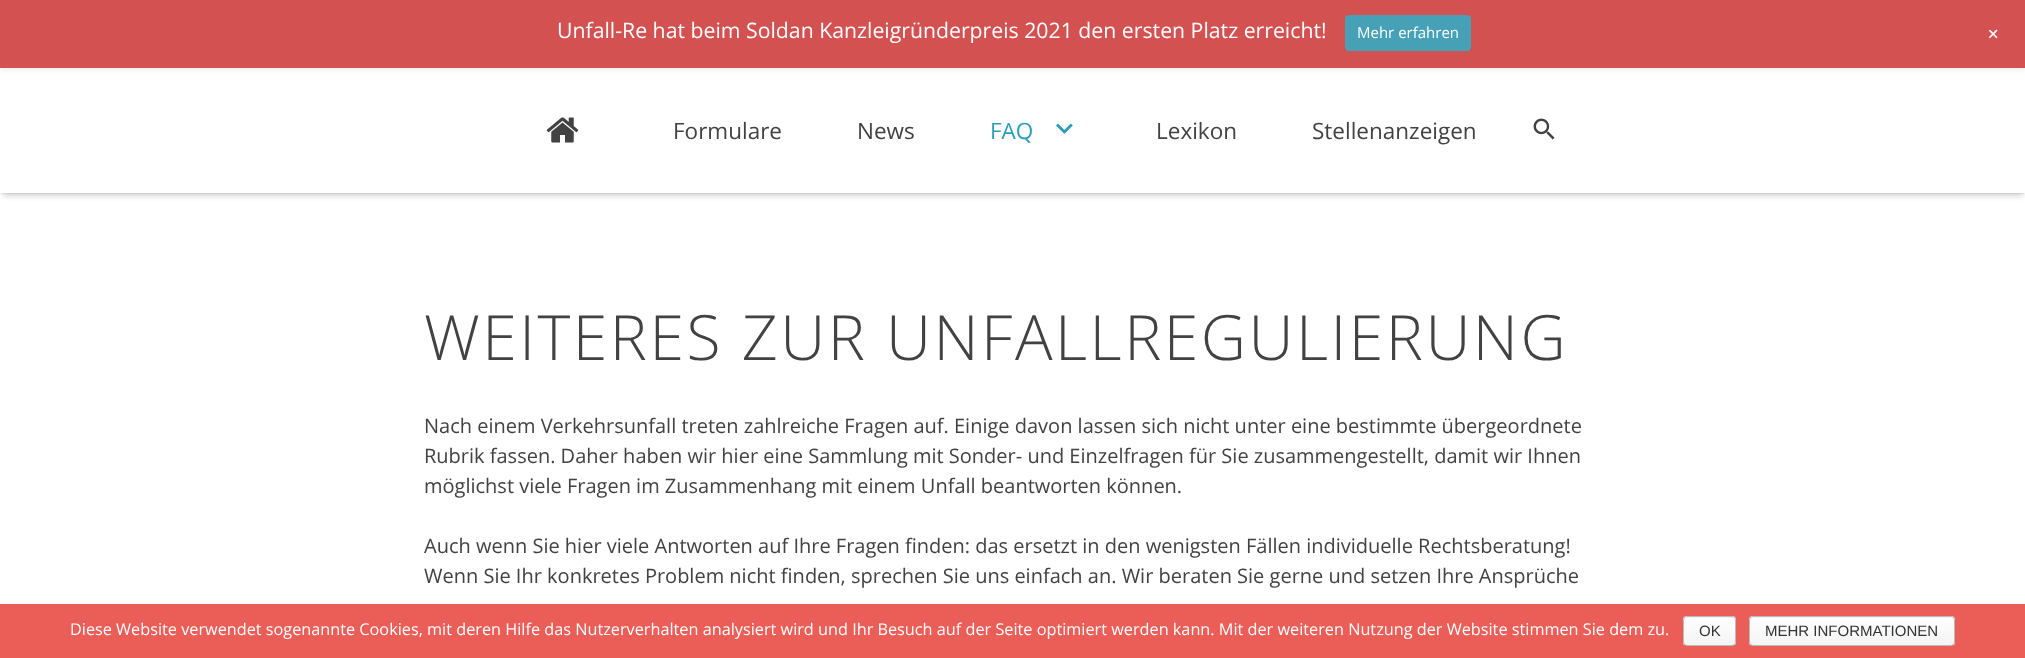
async function draw(canvas) {
  canvas.width = 2025
  canvas.height = 658
  const ctx = canvas.getContext('2d')
  ctx.miterLimit = 4
  ctx.fontKerning = 'normal'
  async function loadImage(src) {
    const img = new Image()
    img.src = src
    await img.decode()
    return img
  }
  let gradient

  ctx.fillStyle = '#fff'
  ctx.fillRect(0, 0, 2025, 658)
  ctx.fillStyle = '#0000000d'
  ctx.filter = 'blur(0.5px)'
  ctx.beginPath()
  ctx.rect(1, 71, 2023, 123)
  ctx.fill()
  ctx.filter = 'none'
  ctx.fillStyle = '#00000038'
  ctx.filter = 'blur(3px)'
  ctx.beginPath()
  ctx.rect(3, 75, 2020, 120)
  ctx.fill()
  ctx.filter = 'none'
  ctx.fillStyle = '#fff'
  ctx.fillRect(0, 70, 2025, 123)
  ctx.fillStyle = '#0000000d'
  ctx.filter = 'blur(2.5px)'
  ctx.beginPath()
  ctx.rect(0, 4, 2025, 67)
  ctx.fill()
  ctx.filter = 'none'
  ctx.fillStyle = '#d35151'
  ctx.fillRect(0, 0, 2025, 68)
  ctx.font = '21.25px Open Sans'
  ctx.fillStyle = '#fff'
  ctx.fillText('Unfall-Re hat beim Soldan Kanzleigründerpreis 2021 den ersten Platz erreicht!', 557, 38)
  ctx.fillStyle = '#46a1b6'
  ctx.beginPath()
  ctx.roundRect(1345, 15, 126, 36, 4)
  ctx.fill()
  ctx.font = '15px Open Sans'
  ctx.fillStyle = '#fff'
  ctx.fillText('Mehr erfahren', 1357, 38)
  ctx.font = '22.5px Open Sans'
  ctx.save()
  ctx.translate(1983, 35)
  ctx.rotate(45 * Math.PI / 180)
  ctx.fillText('+', 0, 0)
  ctx.restore()
  ctx.drawImage(await loadImage('image0.png'), 546, 117, 33, 26)
  ctx.fillStyle = '#424242'
  ctx.fillText('Formulare', 673, 139)
  ctx.fillText('News', 857, 139)
  ctx.fillStyle = '#2c9db6'
  ctx.fillText('FAQ', 990, 139)
  ctx.drawImage(await loadImage('image1.png'), 1056, 123, 17, 11)
  ctx.fillStyle = '#424242'
  ctx.fillText('Lexikon', 1156, 139)
  ctx.fillText('Stellenanzeigen', 1312, 139)
  ctx.drawImage(await loadImage('image2.png'), 1533, 118, 22, 22)
  ctx.letterSpacing = '2.5px'
  ctx.font = '300 62.5px Open Sans'
  ctx.fillText('WEITERES ZUR UNFALLREGULIERUNG', 424, 360)
  ctx.letterSpacing = '0px'
  ctx.font = '20px Open Sans'
  ctx.fillText('Nach einem Verkehrsunfall treten zahlreiche Fragen auf. Einige davon lassen sich nicht unter eine bestimmte übergeordnete', 424, 433)
  ctx.fillText('Rubrik fassen. Daher haben wir hier eine Sammlung mit Sonder- und Einzelfragen für Sie zusammengestellt, damit wir Ihnen', 424, 463)
  ctx.fillText('möglichst viele Fragen im Zusammenhang mit einem Unfall beantworten können.', 424, 493)
  ctx.fillText('Auch wenn Sie hier viele Antworten auf Ihre Fragen finden: das ersetzt in den wenigsten Fällen individuelle Rechtsberatung!', 424, 553)
  ctx.fillText('Wenn Sie Ihr konkretes Problem nicht finden, sprechen Sie uns einfach an. Wir beraten Sie gerne und setzen Ihre Ansprüche', 424, 583)
  ctx.fillStyle = '#eb5e57'
  ctx.fillRect(0, 604, 2025, 54)
  ctx.font = '16.25px Open Sans'
  ctx.fillStyle = '#fff'
  ctx.fillText('Diese Website verwendet sogenannte Cookies, mit deren Hilfe das Nutzerverhalten analysiert wird und Ihr Besuch auf der Seite optimiert werden kann. Mit der weiteren Nutzung der Website stimmen Sie dem zu.', 70, 635)
  ctx.save()
  ctx.beginPath()
  ctx.roundRect(1683, 616, 53, 30, 4)
  ctx.clip()
  gradient = ctx.createLinearGradient(1709, 590, 1709, 618)
  gradient.addColorStop(0, '#fefefe')
  gradient.addColorStop(1, '#f4f4f4')
  ctx.fillStyle = gradient
  ctx.fillRect(1683, 616, 53, 2)
  gradient = ctx.createLinearGradient(1709, 618, 1709, 645)
  gradient.addColorStop(0, '#fefefe')
  gradient.addColorStop(1, '#f4f4f4')
  ctx.fillStyle = gradient
  ctx.fillRect(1683, 618, 53, 27)
  ctx.restore()
  ctx.beginPath()
  ctx.roundRect(1683.5, 616.5, 52, 29, 3.5)
  ctx.strokeStyle = '#bbb'
  ctx.stroke()
  ctx.font = '15px Liberation Sans'
  ctx.fillStyle = '#333'
  ctx.fillText('OK', 1699, 636)
  ctx.save()
  ctx.beginPath()
  ctx.roundRect(1749, 616, 206, 30, 4)
  ctx.clip()
  gradient = ctx.createLinearGradient(1852, 590, 1852, 618)
  gradient.addColorStop(0, '#fefefe')
  gradient.addColorStop(1, '#f4f4f4')
  ctx.fillStyle = gradient
  ctx.fillRect(1749, 616, 206, 2)
  gradient = ctx.createLinearGradient(1852, 618, 1852, 645)
  gradient.addColorStop(0, '#fefefe')
  gradient.addColorStop(1, '#f4f4f4')
  ctx.fillStyle = gradient
  ctx.fillRect(1749, 618, 206, 27)
  ctx.restore()
  ctx.beginPath()
  ctx.roundRect(1749.5, 616.5, 205, 29, 3.5)
  ctx.stroke()
  ctx.fillText('MEHR INFORMATIONEN', 1765, 636)
}

draw(document.querySelector('canvas'))
